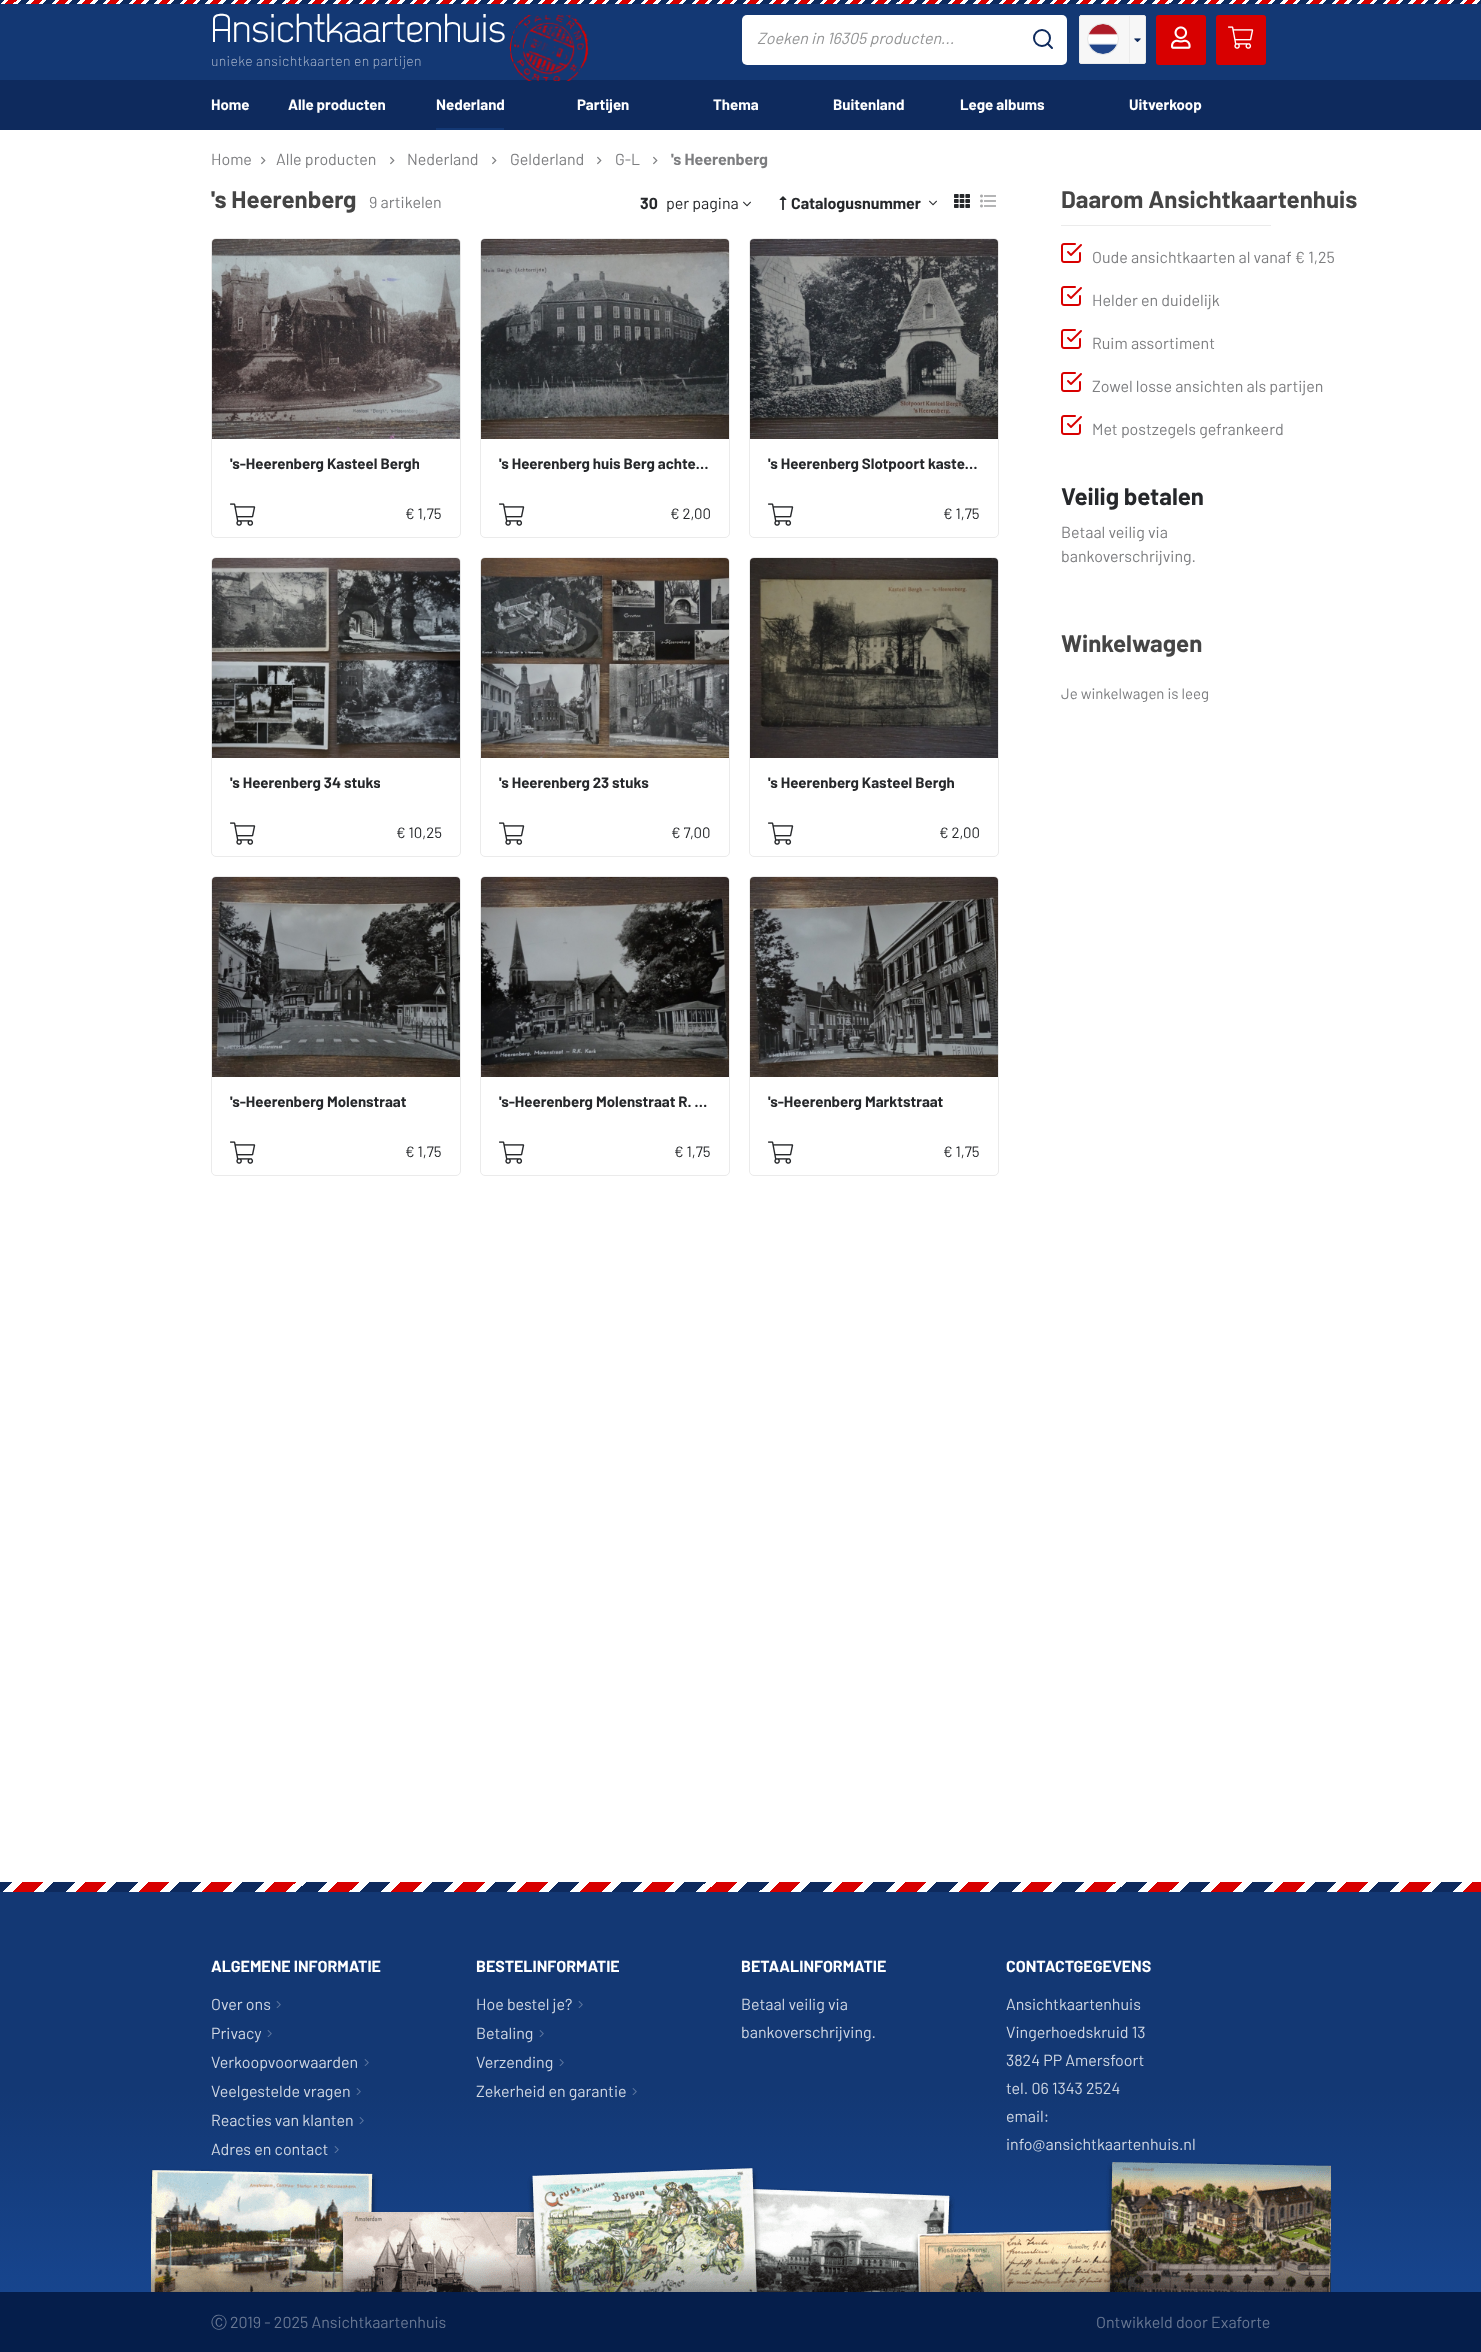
async function draw(canvas) {
  canvas.width = 1481
  canvas.height = 2352
  const ctx = canvas.getContext('2d')
  ctx.miterLimit = 4
  ctx.fontKerning = 'normal'
  async function loadImage(src) {
    const img = new Image()
    img.src = src
    await img.decode()
    return img
  }
  let gradient

  ctx.fillStyle = '#fff'
  ctx.fillRect(0, 0, 1481, 2352)
  ctx.fillStyle = '#133874'
  ctx.fillRect(0, 4, 1481, 76)
  ctx.drawImage(await loadImage('image0.png'), 0, 0, 1481, 4)
  ctx.fillStyle = '#0e2a5d'
  ctx.fillRect(0, 80, 1481, 50)
  ctx.drawImage(await loadImage('image1.png'), 509, 15, 80, 66)
  ctx.font = '40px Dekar'
  ctx.fillStyle = '#fff'
  ctx.fillText('Ansichtkaartenhuis', 211, 42)
  ctx.letterSpacing = '0.3px'
  ctx.font = '300 14px Barlow'
  ctx.fillStyle = '#a1afc7'
  ctx.fillText('unieke ansichtkaarten en partijen', 211, 66)
  ctx.fillStyle = '#fff'
  ctx.beginPath()
  ctx.roundRect(742, 15, 325, 50, 5)
  ctx.fill()
  ctx.letterSpacing = '0px'
  ctx.font = 'italic 16px Barlow'
  ctx.fillStyle = '#939495'
  ctx.fillText('Zoeken in 16305 producten...', 757, 44)
  ctx.beginPath()
  ctx.arc(1042, 38, 8, 0, 2 * Math.PI)
  ctx.strokeStyle = '#0e2a5d'
  ctx.lineWidth = 2
  ctx.stroke()
  ctx.beginPath()
  ctx.moveTo(1052, 48)
  ctx.lineTo(1047.5, 43.5)
  ctx.lineCap = 'round'
  ctx.lineJoin = 'round'
  ctx.stroke()
  ctx.fillStyle = '#f7f7f7'
  ctx.beginPath()
  ctx.roundRect(1079.5, 15.5, 66, 48, 1.5)
  ctx.fill()
  ctx.strokeStyle = '#ebebeb'
  ctx.lineWidth = 1
  ctx.lineJoin = 'miter'
  ctx.stroke()
  ctx.drawImage(await loadImage('image2.png'), 1088, 24, 30, 30)
  ctx.beginPath()
  ctx.arc(1103, 39, 15.5, 0, 2 * Math.PI)
  ctx.strokeStyle = '#e7e7e7'
  ctx.stroke()
  ctx.fillStyle = '#ebebeb'
  ctx.fillRect(1129, 16, 1, 47)
  ctx.drawImage(await loadImage('image3.png'), 1134, 38, 7, 4)
  ctx.fillStyle = '#d80000'
  ctx.beginPath()
  ctx.roundRect(1156, 15, 50, 50, 3)
  ctx.fill()
  ctx.drawImage(await loadImage('image4.png'), 1171, 26, 20, 23)
  ctx.beginPath()
  ctx.roundRect(1216, 15, 50, 50, 3)
  ctx.fill()
  ctx.drawImage(await loadImage('image5.png'), 1228, 26, 26, 23)
  ctx.font = 'bold 15px Barlow'
  ctx.fillStyle = '#fff'
  ctx.fillText('Home', 211, 110)
  ctx.fillText('Alle producten', 288, 110)
  ctx.fillStyle = '#133874'
  ctx.fillRect(436, 128, 68, 2)
  ctx.fillStyle = '#fff'
  ctx.fillText('Nederland', 436, 110)
  ctx.fillText('Partijen', 577, 110)
  ctx.fillText('Thema', 713, 110)
  ctx.fillText('Buitenland', 833, 110)
  ctx.fillText('Lege albums', 960, 110)
  ctx.fillText('Uitverkoop', 1129, 110)
  ctx.font = '16px Barlow'
  ctx.fillStyle = '#7d7e80'
  ctx.fillText('Home', 211, 165)
  ctx.drawImage(await loadImage('image6.png'), 261, 156, 5, 9)
  ctx.fillText('Alle producten', 276, 165)
  ctx.drawImage(await loadImage('image6.png'), 390, 156, 5, 9)
  ctx.fillText('Nederland', 407, 165)
  ctx.drawImage(await loadImage('image6.png'), 492, 156, 5, 9)
  ctx.fillText('Gelderland', 510, 165)
  ctx.drawImage(await loadImage('image6.png'), 597, 156, 5, 9)
  ctx.fillText('G-L', 615, 165)
  ctx.drawImage(await loadImage('image6.png'), 653, 156, 5, 9)
  ctx.font = 'bold 16px Barlow'
  ctx.fillText('\'s Heerenberg', 671, 165)
  ctx.font = 'bold 24px Barlow'
  ctx.fillStyle = '#454545'
  ctx.fillText('\'s Heerenberg', 211, 208)
  ctx.font = '16px Barlow'
  ctx.fillStyle = '#7d7e80'
  ctx.fillText('9 artikelen', 369, 208)
  ctx.font = 'bold 16px Barlow'
  ctx.fillStyle = '#26282b'
  ctx.fillText('30', 640, 209)
  ctx.font = '16px Barlow'
  ctx.fillText('per pagina', 666, 209)
  ctx.drawImage(await loadImage('image7.png'), 743, 201, 8, 6)
  ctx.drawImage(await loadImage('image8.png'), 779, 196, 8, 14)
  ctx.font = 'bold 16px Barlow'
  ctx.fillText('Catalogusnummer', 791, 209)
  ctx.drawImage(await loadImage('image7.png'), 929, 200, 8, 6)
  ctx.drawImage(await loadImage('image9.png'), 954, 194, 16, 14)
  ctx.drawImage(await loadImage('image10.png'), 980, 194, 16, 14)
  ctx.beginPath()
  ctx.roundRect(211.5, 238.5, 249, 299, 4.5)
  ctx.strokeStyle = '#ebebeb'
  ctx.stroke()
  ctx.drawImage(await loadImage('image11.png'), 212, 239, 248, 200)
  ctx.save()
  ctx.beginPath()
  ctx.rect(230, 454, 189, 40)
  ctx.clip()
  ctx.font = 'bold 15px Barlow'
  ctx.fillText('\'s-Heerenberg Kasteel Bergh', 230, 469)
  ctx.restore()
  ctx.drawImage(await loadImage('image12.png'), 230, 503, 26, 23)
  ctx.font = '15px Barlow'
  ctx.fillText('€ 1,75', 405, 519)
  ctx.beginPath()
  ctx.roundRect(480.5, 238.5, 249, 299, 4.5)
  ctx.stroke()
  ctx.drawImage(await loadImage('image13.png'), 481, 239, 248, 200)
  ctx.font = 'bold 15px Barlow'
  ctx.fillText('\'s Heerenberg huis Berg achte…', 499, 469)
  ctx.drawImage(await loadImage('image12.png'), 499, 503, 26, 23)
  ctx.font = '15px Barlow'
  ctx.fillText('€ 2,00', 670, 519)
  ctx.beginPath()
  ctx.roundRect(749.5, 238.5, 249, 299, 4.5)
  ctx.stroke()
  ctx.drawImage(await loadImage('image14.png'), 750, 239, 248, 200)
  ctx.font = 'bold 15px Barlow'
  ctx.fillText('\'s Heerenberg Slotpoort kaste…', 768, 469)
  ctx.drawImage(await loadImage('image12.png'), 768, 503, 26, 23)
  ctx.font = '15px Barlow'
  ctx.fillText('€ 1,75', 943, 519)
  ctx.beginPath()
  ctx.roundRect(211.5, 557.5, 249, 299, 4.5)
  ctx.stroke()
  ctx.drawImage(await loadImage('image15.png'), 212, 558, 248, 200)
  ctx.save()
  ctx.beginPath()
  ctx.rect(230, 773, 150, 40)
  ctx.clip()
  ctx.font = 'bold 15px Barlow'
  ctx.fillText('\'s Heerenberg 34 stuks', 230, 788)
  ctx.restore()
  ctx.drawImage(await loadImage('image12.png'), 230, 822, 26, 23)
  ctx.fillText('€ 10,25', 396, 838)
  ctx.beginPath()
  ctx.roundRect(480.5, 557.5, 249, 299, 4.5)
  ctx.stroke()
  ctx.drawImage(await loadImage('image16.png'), 481, 558, 248, 200)
  ctx.font = 'bold 15px Barlow'
  ctx.fillText('\'s Heerenberg 23 stuks', 499, 788)
  ctx.drawImage(await loadImage('image12.png'), 499, 822, 26, 23)
  ctx.font = '15px Barlow'
  ctx.fillText('€ 7,00', 671, 838)
  ctx.beginPath()
  ctx.roundRect(749.5, 557.5, 249, 299, 4.5)
  ctx.stroke()
  ctx.drawImage(await loadImage('image17.png'), 750, 558, 248, 200)
  ctx.font = 'bold 15px Barlow'
  ctx.fillText('\'s Heerenberg Kasteel Bergh', 768, 788)
  ctx.drawImage(await loadImage('image12.png'), 768, 822, 26, 23)
  ctx.font = '15px Barlow'
  ctx.fillText('€ 2,00', 939, 838)
  ctx.beginPath()
  ctx.roundRect(211.5, 876.5, 249, 299, 4.5)
  ctx.stroke()
  ctx.drawImage(await loadImage('image18.png'), 212, 877, 248, 200)
  ctx.save()
  ctx.beginPath()
  ctx.rect(230, 1092, 176, 40)
  ctx.clip()
  ctx.font = 'bold 15px Barlow'
  ctx.fillText('\'s-Heerenberg Molenstraat', 230, 1107)
  ctx.restore()
  ctx.drawImage(await loadImage('image12.png'), 230, 1141, 26, 23)
  ctx.fillText('€ 1,75', 405, 1157)
  ctx.beginPath()
  ctx.roundRect(480.5, 876.5, 249, 299, 4.5)
  ctx.stroke()
  ctx.drawImage(await loadImage('image19.png'), 481, 877, 248, 200)
  ctx.font = 'bold 15px Barlow'
  ctx.fillText('\'s-Heerenberg Molenstraat R. …', 499, 1107)
  ctx.drawImage(await loadImage('image12.png'), 499, 1141, 26, 23)
  ctx.font = '15px Barlow'
  ctx.fillText('€ 1,75', 674, 1157)
  ctx.beginPath()
  ctx.roundRect(749.5, 876.5, 249, 299, 4.5)
  ctx.stroke()
  ctx.drawImage(await loadImage('image20.png'), 750, 877, 248, 200)
  ctx.font = 'bold 15px Barlow'
  ctx.fillText('\'s-Heerenberg Marktstraat', 768, 1107)
  ctx.drawImage(await loadImage('image12.png'), 768, 1141, 26, 23)
  ctx.font = '15px Barlow'
  ctx.fillText('€ 1,75', 943, 1157)
  ctx.fillStyle = '#ebebeb'
  ctx.fillRect(1061, 225, 210, 1)
  ctx.font = 'bold 24px Barlow'
  ctx.fillStyle = '#454545'
  ctx.fillText('Daarom Ansichtkaartenhuis', 1061, 208)
  ctx.drawImage(await loadImage('image21.png'), 1061, 243, 21, 20)
  ctx.font = '16px Barlow'
  ctx.fillStyle = '#7d7e80'
  ctx.fillText('Oude ansichtkaarten al vanaf € 1,25', 1092, 263)
  ctx.drawImage(await loadImage('image21.png'), 1061, 286, 21, 20)
  ctx.fillText('Helder en duidelijk', 1092, 306)
  ctx.drawImage(await loadImage('image21.png'), 1061, 329, 21, 20)
  ctx.fillText('Ruim assortiment', 1092, 349)
  ctx.drawImage(await loadImage('image21.png'), 1061, 372, 21, 20)
  ctx.fillText('Zowel losse ansichten als partijen', 1092, 392)
  ctx.drawImage(await loadImage('image21.png'), 1061, 415, 21, 20)
  ctx.fillText('Met postzegels gefrankeerd', 1092, 435)
  ctx.font = 'bold 24px Barlow'
  ctx.fillStyle = '#26282b'
  ctx.fillText('Veilig betalen', 1061, 505)
  ctx.font = '16px Barlow'
  ctx.fillStyle = '#7d7e80'
  ctx.fillText('Betaal veilig via', 1061, 538)
  ctx.fillText('bankoverschrijving.', 1061, 562)
  ctx.font = 'bold 24px Barlow'
  ctx.fillStyle = '#454545'
  ctx.fillText('Winkelwagen', 1061, 652)
  ctx.font = '15px Barlow'
  ctx.fillStyle = '#7d7e80'
  ctx.fillText('Je winkelwagen is leeg', 1061, 699)
  ctx.fillStyle = '#051e4b'
  ctx.fillRect(0, 2292, 1481, 60)
  ctx.drawImage(await loadImage('image22.png'), 0, 1882, 1481, 10)
  ctx.fillStyle = '#133874'
  ctx.fillRect(0, 1892, 1481, 200)
  ctx.font = 'bold 16px Barlow'
  ctx.fillStyle = '#fff'
  ctx.fillText('ALGEMENE INFORMATIE', 211, 1972)
  ctx.font = '16px Barlow'
  ctx.fillStyle = '#d0d7e3'
  ctx.fillText('Over ons', 211, 2010)
  ctx.drawImage(await loadImage('image23.png'), 276, 2001, 5, 7)
  ctx.fillText('Privacy', 211, 2039)
  ctx.drawImage(await loadImage('image23.png'), 267, 2030, 5, 7)
  ctx.fillText('Verkoopvoorwaarden', 211, 2068)
  ctx.drawImage(await loadImage('image23.png'), 364, 2059, 5, 7)
  gradient = ctx.createLinearGradient(741, 2092, 741, 2292)
  gradient.addColorStop(0, '#133874')
  gradient.addColorStop(1, '#17458e')
  ctx.fillStyle = gradient
  ctx.fillRect(0, 2092, 1481, 200)
  ctx.fillStyle = '#d0d7e3'
  ctx.fillText('Veelgestelde vragen', 211, 2097)
  ctx.drawImage(await loadImage('image23.png'), 356, 2088, 5, 7)
  ctx.fillText('Reacties van klanten', 211, 2126)
  ctx.drawImage(await loadImage('image24.png'), 359, 2117, 5, 7)
  ctx.fillText('Adres en contact', 211, 2155)
  ctx.drawImage(await loadImage('image25.png'), 334, 2146, 5, 7)
  ctx.font = 'bold 16px Barlow'
  ctx.fillStyle = '#fff'
  ctx.fillText('BESTELINFORMATIE', 476, 1972)
  ctx.font = '16px Barlow'
  ctx.fillStyle = '#d0d7e3'
  ctx.fillText('Hoe bestel je?', 476, 2010)
  ctx.drawImage(await loadImage('image23.png'), 578, 2001, 5, 7)
  ctx.fillText('Betaling', 476, 2039)
  ctx.drawImage(await loadImage('image23.png'), 539, 2030, 5, 7)
  ctx.fillText('Verzending', 476, 2068)
  ctx.drawImage(await loadImage('image23.png'), 559, 2059, 5, 7)
  ctx.fillText('Zekerheid en garantie', 476, 2097)
  ctx.drawImage(await loadImage('image23.png'), 632, 2088, 5, 7)
  ctx.font = 'bold 16px Barlow'
  ctx.fillStyle = '#fff'
  ctx.fillText('BETAALINFORMATIE', 741, 1972)
  ctx.font = '16px Barlow'
  ctx.fillStyle = '#d0d7e3'
  ctx.fillText('Betaal veilig via', 741, 2010)
  ctx.fillText('bankoverschrijving.', 741, 2038)
  ctx.font = 'bold 16px Barlow'
  ctx.fillStyle = '#fff'
  ctx.fillText('CONTACTGEGEVENS', 1006, 1972)
  ctx.font = '16px Barlow'
  ctx.fillStyle = '#d0d7e3'
  ctx.fillText('Ansichtkaartenhuis', 1006, 2010)
  ctx.fillText('Vingerhoedskruid 13', 1006, 2038)
  ctx.fillText('3824 PP Amersfoort', 1006, 2066)
  ctx.fillText('tel. 06 1343 2524', 1006, 2094)
  ctx.fillText('email:', 1006, 2122)
  ctx.fillText('info@ansichtkaartenhuis.nl', 1006, 2150)
  ctx.drawImage(await loadImage('image26.png'), 151, 2162, 1180, 130)
  ctx.font = '500 16px WenQuanYi Zen Hei'
  ctx.fillStyle = '#697893'
  ctx.fillText('Ⓒ', 211, 2328)
  ctx.font = '16px Barlow'
  ctx.fillText('2019 - 2025 Ansichtkaartenhuis', 230, 2328)
  ctx.fillText('Ontwikkeld door Exaforte', 1096, 2328)
}

draw(document.querySelector('canvas'))
